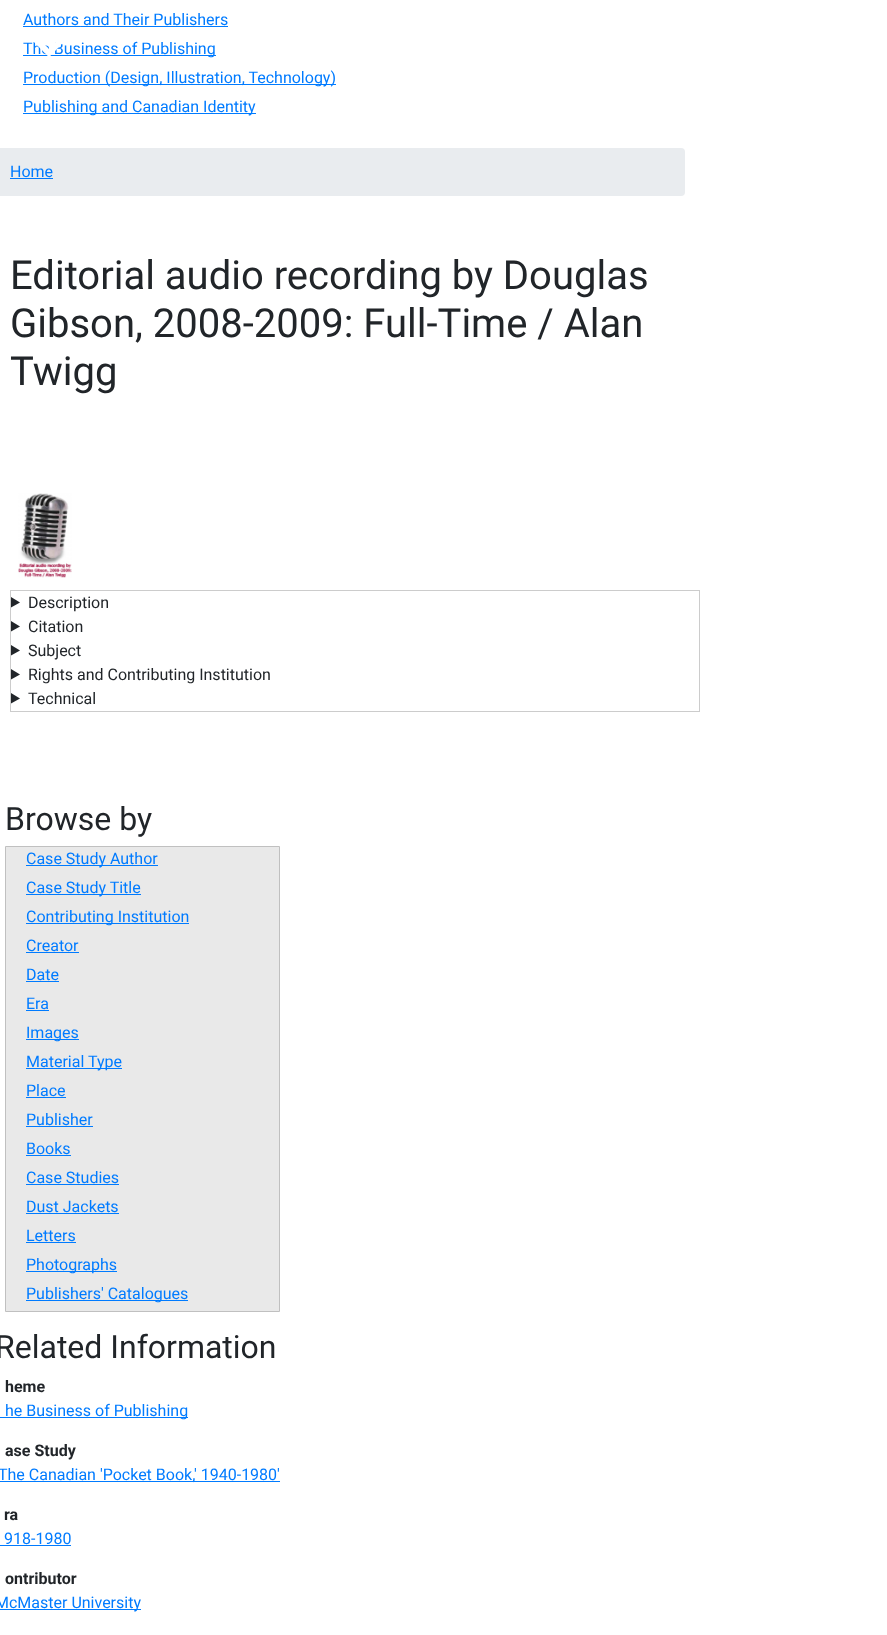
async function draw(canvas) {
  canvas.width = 887
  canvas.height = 1635
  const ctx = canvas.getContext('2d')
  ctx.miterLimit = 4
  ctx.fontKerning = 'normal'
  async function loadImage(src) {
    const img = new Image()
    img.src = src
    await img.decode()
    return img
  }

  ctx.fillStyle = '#fff'
  ctx.fillRect(0, 0, 887, 1635)
  ctx.font = '16px Roboto'
  ctx.fillStyle = '#007bff'
  ctx.fillText('Authors and Their Publishers', 23, 25)
  ctx.fillRect(23, 26, 205, 1)
  ctx.fillRect(23, 55, 193, 1)
  ctx.fillText('The Business of Publishing', 23, 54)
  ctx.beginPath()
  ctx.roundRect(16.5, 8.5, 64, 53, 3.5)
  ctx.strokeStyle = '#ffffff1a'
  ctx.stroke()
  ctx.beginPath()
  ctx.moveTo(66, 35.5)
  ctx.lineTo(49, 53)
  ctx.lineTo(31.5, 35.5)
  ctx.strokeStyle = '#fff'
  ctx.lineWidth = 5.8
  ctx.stroke()
  ctx.fillRect(23, 84, 313, 1)
  ctx.fillText('Production (Design, Illustration, Technology)', 23, 83)
  ctx.fillRect(23, 113, 233, 1)
  ctx.fillText('Publishing and Canadian Identity', 23, 112)
  ctx.fillStyle = '#e9ecef'
  ctx.beginPath()
  ctx.roundRect(-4, 148, 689, 48, 4)
  ctx.fill()
  ctx.fillStyle = '#007bff'
  ctx.fillText('Home', 10, 177)
  ctx.fillRect(10, 178, 43, 1)
  ctx.font = '40px Roboto'
  ctx.fillStyle = '#212529'
  ctx.fillText('Editorial audio recording by Douglas', 10, 289)
  ctx.fillText('Gibson, 2008-2009: Full-Time / Alan', 10, 337)
  ctx.fillText('Twigg', 10, 385)
  ctx.drawImage(await loadImage('image0.png'), 18, 493, 54, 85)
  ctx.strokeStyle = '#ccc'
  ctx.lineWidth = 1
  ctx.strokeRect(10.5, 590.5, 689, 121)
  ctx.beginPath()
  ctx.moveTo(11, 597)
  ctx.lineTo(20, 602.5)
  ctx.lineTo(11, 607.5)
  ctx.closePath()
  ctx.fill()
  ctx.font = '16px Roboto'
  ctx.fillText('Description', 28, 608)
  ctx.beginPath()
  ctx.moveTo(11, 621)
  ctx.lineTo(20, 626.5)
  ctx.lineTo(11, 631.5)
  ctx.closePath()
  ctx.fill()
  ctx.fillText('Citation', 28, 632)
  ctx.beginPath()
  ctx.moveTo(11, 645)
  ctx.lineTo(20, 650.5)
  ctx.lineTo(11, 655.5)
  ctx.closePath()
  ctx.fill()
  ctx.fillText('Subject', 28, 656)
  ctx.beginPath()
  ctx.moveTo(11, 669)
  ctx.lineTo(20, 674.5)
  ctx.lineTo(11, 679.5)
  ctx.closePath()
  ctx.fill()
  ctx.fillText('Rights and Contributing Institution', 28, 680)
  ctx.beginPath()
  ctx.moveTo(11, 693)
  ctx.lineTo(20, 698.5)
  ctx.lineTo(11, 703.5)
  ctx.closePath()
  ctx.fill()
  ctx.fillText('Technical', 28, 704)
  ctx.font = '32px Roboto'
  ctx.fillText('Browse by', 5, 830)
  ctx.fillStyle = '#e9e9e9'
  ctx.beginPath()
  ctx.rect(5.5, 846.5, 274, 465)
  ctx.fill()
  ctx.strokeStyle = '#c0c0c0'
  ctx.stroke()
  ctx.fillStyle = '#007bff'
  ctx.fillRect(26, 865, 132, 1)
  ctx.font = '16px Roboto'
  ctx.fillText('Case Study Author', 26, 864)
  ctx.fillRect(26, 894, 115, 1)
  ctx.fillText('Case Study Title', 26, 893)
  ctx.fillRect(26, 923, 163, 1)
  ctx.fillText('Contributing Institution', 26, 922)
  ctx.fillText('Creator', 26, 951)
  ctx.fillRect(26, 952, 53, 1)
  ctx.fillText('Date', 26, 980)
  ctx.fillRect(26, 981, 33, 1)
  ctx.fillText('Era', 26, 1009)
  ctx.fillRect(26, 1010, 23, 1)
  ctx.fillRect(26, 1039, 53, 1)
  ctx.fillText('Images', 26, 1038)
  ctx.fillRect(26, 1068, 96, 1)
  ctx.fillText('Material Type', 26, 1067)
  ctx.fillText('Place', 26, 1096)
  ctx.fillRect(26, 1097, 40, 1)
  ctx.fillText('Publisher', 26, 1125)
  ctx.fillRect(26, 1126, 67, 1)
  ctx.fillText('Books', 26, 1154)
  ctx.fillRect(26, 1155, 45, 1)
  ctx.fillText('Case Studies', 26, 1183)
  ctx.fillRect(26, 1184, 93, 1)
  ctx.fillText('Dust Jackets', 26, 1212)
  ctx.fillRect(26, 1213, 93, 1)
  ctx.fillText('Letters', 26, 1241)
  ctx.fillRect(26, 1242, 50, 1)
  ctx.fillRect(26, 1271, 91, 1)
  ctx.fillText('Photographs', 26, 1270)
  ctx.fillRect(26, 1300, 162, 1)
  ctx.fillText('Publishers\' Catalogues', 26, 1299)
  ctx.font = '32px Roboto'
  ctx.fillStyle = '#212529'
  ctx.fillText('Related Information', -5, 1358)
  ctx.font = 'bold 16px Roboto'
  ctx.fillText('heme', 5, 1392)
  ctx.fillStyle = '#007bff'
  ctx.fillRect(0, 1417, 188, 1)
  ctx.font = '16px Roboto'
  ctx.fillText('he Business of Publishing', 5, 1416)
  ctx.font = 'bold 16px Roboto'
  ctx.fillStyle = '#212529'
  ctx.fillText('ase Study', 5, 1456)
  ctx.fillStyle = '#007bff'
  ctx.fillRect(0, 1481, 280, 1)
  ctx.font = '16px Roboto'
  ctx.fillText('The Canadian \'Pocket Book,\' 1940-1980\'', -2, 1480)
  ctx.font = 'bold 16px Roboto'
  ctx.fillStyle = '#212529'
  ctx.fillText('ra', 4, 1520)
  ctx.font = '16px Roboto'
  ctx.fillStyle = '#007bff'
  ctx.fillText('918-1980', 4, 1544)
  ctx.fillRect(0, 1545, 71, 1)
  ctx.font = 'bold 16px Roboto'
  ctx.fillStyle = '#212529'
  ctx.fillText('ontributor', 5, 1584)
  ctx.fillStyle = '#007bff'
  ctx.fillRect(0, 1609, 141, 1)
  ctx.font = '16px Roboto'
  ctx.fillText('McMaster University', -5, 1608)
}

draw(document.querySelector('canvas'))
